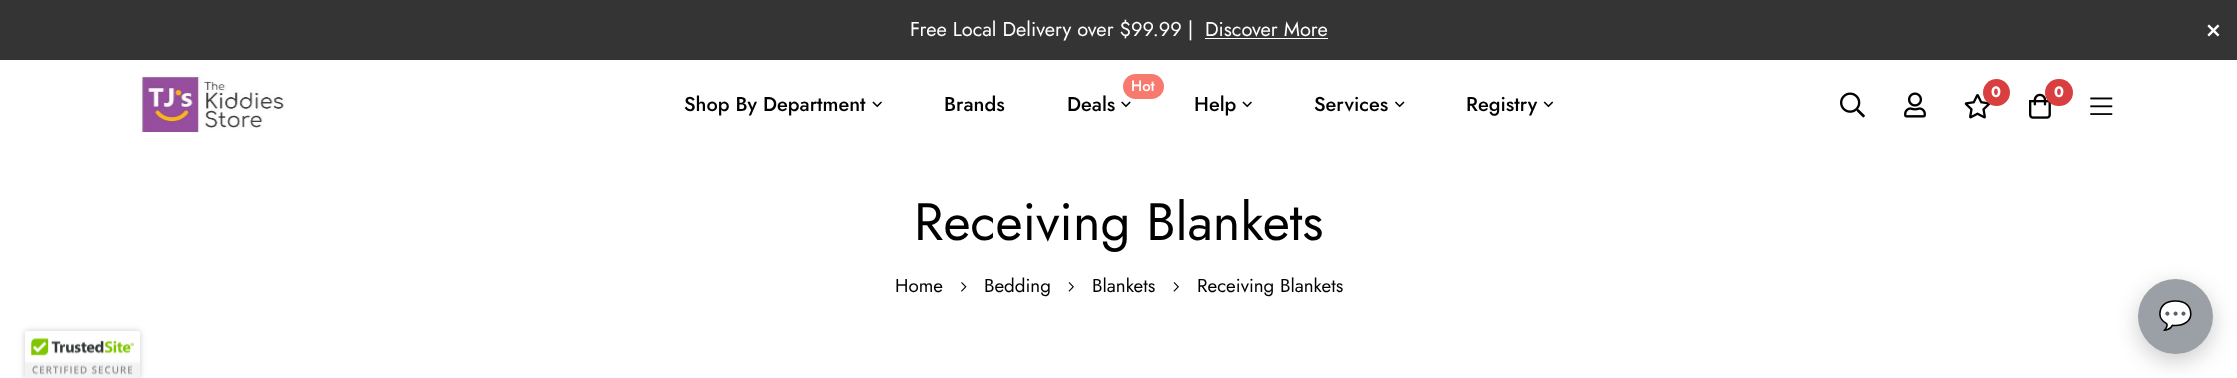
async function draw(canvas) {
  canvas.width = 2237
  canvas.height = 378
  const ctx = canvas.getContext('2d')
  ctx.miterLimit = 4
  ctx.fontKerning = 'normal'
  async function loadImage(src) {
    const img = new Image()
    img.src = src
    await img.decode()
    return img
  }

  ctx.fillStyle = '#fff'
  ctx.fillRect(0, 0, 2237, 378)
  ctx.fillStyle = '#343434'
  ctx.fillRect(0, 0, 2237, 60)
  ctx.font = '20px Jost'
  ctx.fillStyle = '#fff'
  ctx.fillText('Free Local Delivery over $99.99 |', 910, 36)
  ctx.fillText('Discover More', 1205, 36)
  ctx.fillRect(1205, 38, 123, 1)
  ctx.drawImage(await loadImage('image0.png'), 2207, 24, 13, 13)
  ctx.drawImage(await loadImage('image1.png'), 141, 74, 144, 59)
  ctx.font = '500 20px Jost'
  ctx.fillStyle = '#000'
  ctx.fillText('Shop By Department', 684, 111)
  ctx.drawImage(await loadImage('image2.png'), 872, 101, 10, 7)
  ctx.fillText('Brands', 944, 111)
  ctx.fillStyle = '#f8796e'
  ctx.beginPath()
  ctx.roundRect(1123, 74, 41, 25, 12.5)
  ctx.fill()
  ctx.font = '500 15px Jost'
  ctx.fillStyle = '#fff'
  ctx.fillText('Hot', 1131, 91)
  ctx.font = '500 20px Jost'
  ctx.fillStyle = '#000'
  ctx.fillText('Deals', 1067, 111)
  ctx.drawImage(await loadImage('image3.png'), 1121, 101, 10, 7)
  ctx.fillText('Help', 1194, 111)
  ctx.drawImage(await loadImage('image2.png'), 1242, 101, 10, 7)
  ctx.fillText('Services', 1314, 111)
  ctx.drawImage(await loadImage('image4.png'), 1395, 101, 10, 7)
  ctx.fillText('Registry', 1466, 111)
  ctx.drawImage(await loadImage('image5.png'), 1543, 101, 11, 7)
  ctx.drawImage(await loadImage('image6.png'), 1840, 92, 25, 26)
  ctx.drawImage(await loadImage('image7.png'), 1904, 92, 22, 26)
  ctx.drawImage(await loadImage('image8.png'), 1964, 94, 27, 25)
  ctx.fillStyle = '#da3f3f'
  ctx.beginPath()
  ctx.arc(1996.5, 92.5, 13.5, 0, 2 * Math.PI)
  ctx.fill()
  ctx.font = 'bold 15px Jost'
  ctx.fillStyle = '#fff'
  ctx.fillText('0', 1991, 97)
  ctx.drawImage(await loadImage('image9.png'), 2029, 93, 22, 26)
  ctx.fillStyle = '#da3f3f'
  ctx.beginPath()
  ctx.roundRect(2045, 79, 28, 27, 13.5)
  ctx.fill()
  ctx.fillStyle = '#fff'
  ctx.fillText('0', 2054, 97)
  ctx.drawImage(await loadImage('image10.png'), 2090, 97, 23, 18)
  ctx.font = '52.5px Jost'
  ctx.fillStyle = '#000'
  ctx.fillText('Receiving Blankets', 914, 240)
  ctx.font = '18.75px Jost'
  ctx.fillText('Home', 895, 292)
  ctx.drawImage(await loadImage('image11.png'), 961, 282, 6, 10)
  ctx.fillText('Bedding', 984, 292)
  ctx.drawImage(await loadImage('image12.png'), 1068, 282, 6, 10)
  ctx.fillText('Blankets', 1092, 292)
  ctx.drawImage(await loadImage('image12.png'), 1173, 282, 6, 10)
  ctx.fillText('Receiving Blankets', 1197, 292)
  ctx.fillStyle = '#00000033'
  ctx.filter = 'blur(11px)'
  ctx.beginPath()
  ctx.roundRect(2138, 286, 75, 75, 37.5)
  ctx.fill()
  ctx.filter = 'none'
  ctx.fillStyle = '#9aa0a6'
  ctx.beginPath()
  ctx.arc(2175.5, 316.5, 37.5, 0, 2 * Math.PI)
  ctx.fill()
  ctx.font = '28px Noto Color Emoji'
  ctx.fillStyle = '#fff'
  ctx.fillText('💬', 2158, 325)
  ctx.fillStyle = '#00000033'
  ctx.filter = 'blur(3px)'
  ctx.beginPath()
  ctx.roundRect(25, 331, 115, 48, 2.5)
  ctx.fill()
  ctx.filter = 'none'
  ctx.fillStyle = '#fff'
  ctx.beginPath()
  ctx.moveTo(27.5, 331)
  ctx.lineTo(137.5, 331)
  ctx.bezierCurveTo(139, 331, 140, 332, 140, 333.5)
  ctx.lineTo(140, 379)
  ctx.lineTo(25, 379)
  ctx.lineTo(25, 333.5)
  ctx.bezierCurveTo(25, 332, 26, 331, 27.5, 331)
  ctx.closePath()
  ctx.fill()
  ctx.drawImage(await loadImage('image13.png'), 25, 337, 115, 41)
}

draw(document.querySelector('canvas'))
